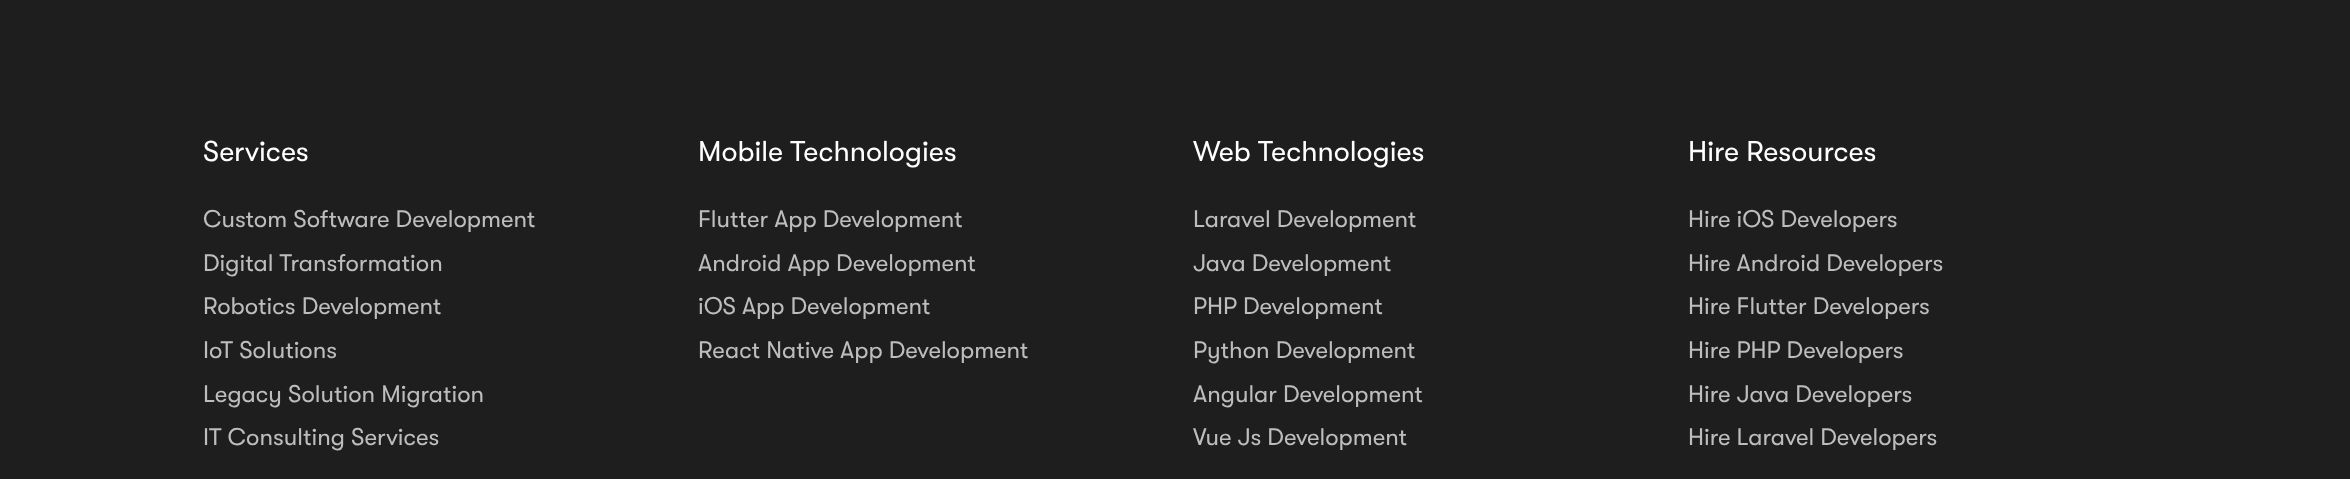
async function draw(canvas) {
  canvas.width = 2350
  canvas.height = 479
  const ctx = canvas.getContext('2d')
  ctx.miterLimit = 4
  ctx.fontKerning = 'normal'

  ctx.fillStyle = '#1f1e1f'
  ctx.fillRect(0, 0, 2350, 479)
  ctx.font = '28.75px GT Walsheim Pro'
  ctx.fillStyle = '#fff'
  ctx.fillText('Services', 203, 161)
  ctx.font = '24px GT Walsheim Pro'
  ctx.fillStyle = '#bdbdbd'
  ctx.fillText('Custom Software Development', 203, 227)
  ctx.fillText('Digital Transformation', 203, 271)
  ctx.fillText('Robotics Development', 203, 314)
  ctx.fillText('IoT Solutions', 203, 358)
  ctx.fillText('Legacy Solution Migration', 203, 402)
  ctx.fillText('IT Consulting Services', 203, 445)
  ctx.font = '28.75px GT Walsheim Pro'
  ctx.fillStyle = '#fff'
  ctx.fillText('Mobile Technologies', 698, 161)
  ctx.font = '24px GT Walsheim Pro'
  ctx.fillStyle = '#bdbdbd'
  ctx.fillText('Flutter App Development', 698, 227)
  ctx.fillText('Android App Development', 698, 271)
  ctx.fillText('iOS App Development', 698, 314)
  ctx.fillText('React Native App Development', 698, 358)
  ctx.font = '28.75px GT Walsheim Pro'
  ctx.fillStyle = '#fff'
  ctx.fillText('Web Technologies', 1193, 161)
  ctx.font = '24px GT Walsheim Pro'
  ctx.fillStyle = '#bdbdbd'
  ctx.fillText('Laravel Development', 1193, 227)
  ctx.fillText('Java Development', 1193, 271)
  ctx.fillText('PHP Development', 1193, 314)
  ctx.fillText('Python Development', 1193, 358)
  ctx.fillText('Angular Development', 1193, 402)
  ctx.fillText('Vue Js Development', 1193, 445)
  ctx.font = '28.75px GT Walsheim Pro'
  ctx.fillStyle = '#fff'
  ctx.fillText('Hire Resources', 1688, 161)
  ctx.font = '24px GT Walsheim Pro'
  ctx.fillStyle = '#bdbdbd'
  ctx.fillText('Hire iOS Developers', 1688, 227)
  ctx.fillText('Hire Android Developers', 1688, 271)
  ctx.fillText('Hire Flutter Developers', 1688, 314)
  ctx.fillText('Hire PHP Developers', 1688, 358)
  ctx.fillText('Hire Java Developers', 1688, 402)
  ctx.fillText('Hire Laravel Developers', 1688, 445)
}

draw(document.querySelector('canvas'))
